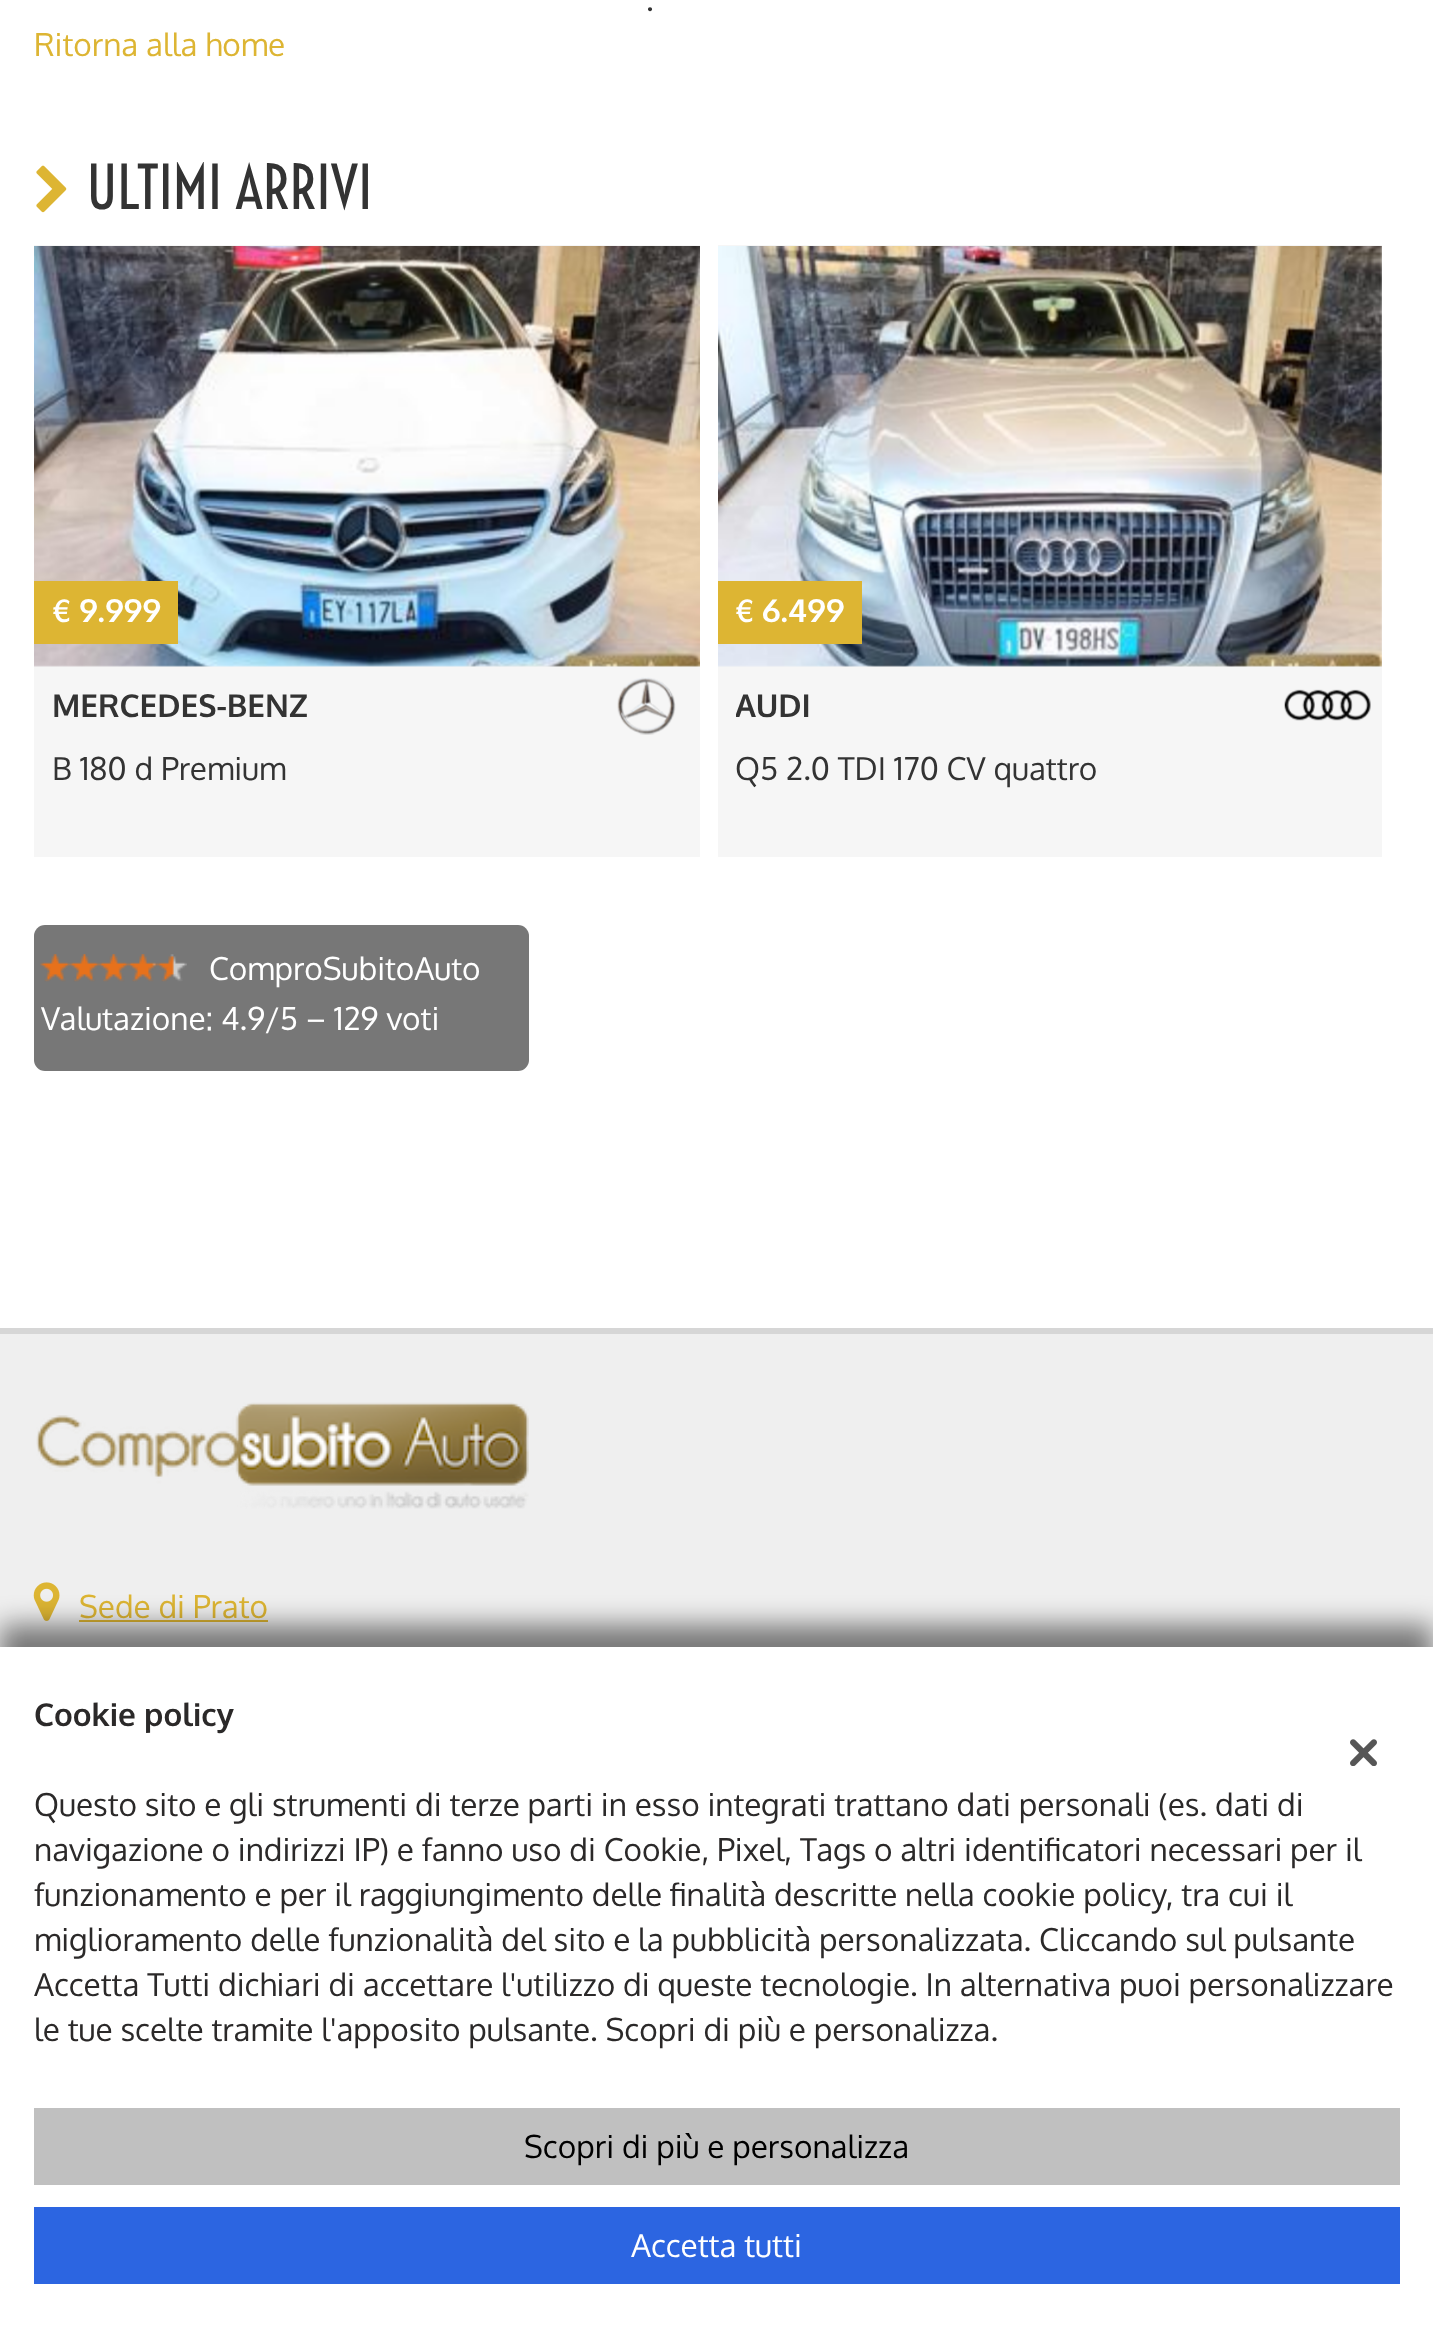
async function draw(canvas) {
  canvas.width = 1433
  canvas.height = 2350
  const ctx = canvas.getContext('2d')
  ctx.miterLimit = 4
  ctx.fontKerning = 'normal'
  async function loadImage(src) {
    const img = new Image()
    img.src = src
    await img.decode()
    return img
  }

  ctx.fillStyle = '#fff'
  ctx.fillRect(0, 0, 1433, 2350)
  ctx.font = '31.5px Oxygen'
  ctx.fillStyle = '#333'
  ctx.fillText('.', 646, 11)
  ctx.fillStyle = '#ddb533'
  ctx.fillText('Ritorna alla home', 34, 56)
  ctx.drawImage(await loadImage('image0.png'), 36, 165, 31, 48)
  ctx.font = '58.5px Voltaire'
  ctx.fillStyle = '#333'
  ctx.fillText('ULTIMI ARRIVI', 86, 209)
  ctx.fillStyle = '#f6f6f6'
  ctx.fillRect(34, 245, 666, 612)
  ctx.drawImage(await loadImage('image1.png'), 34, 246, 666, 421)
  ctx.fillStyle = '#ddb533'
  ctx.fillRect(34, 581, 144, 63)
  ctx.font = 'bold 31.5px Oxygen'
  ctx.fillStyle = '#fff'
  ctx.fillText('€ 9.999', 52, 622)
  ctx.fillStyle = '#333'
  ctx.fillText('MERCEDES-BENZ', 52, 717)
  ctx.drawImage(await loadImage('image2.png'), 617, 677, 59, 58)
  ctx.font = '31.5px Oxygen'
  ctx.fillText('B 180 d Premium', 52, 780)
  ctx.fillStyle = '#f6f6f6'
  ctx.fillRect(718, 245, 664, 612)
  ctx.drawImage(await loadImage('image3.png'), 718, 246, 664, 421)
  ctx.fillStyle = '#ddb533'
  ctx.fillRect(718, 581, 144, 63)
  ctx.font = 'bold 31.5px Oxygen'
  ctx.fillStyle = '#fff'
  ctx.fillText('€ 6.499', 735, 622)
  ctx.save()
  ctx.beginPath()
  ctx.rect(736, 684, 646, 45)
  ctx.clip()
  ctx.fillStyle = '#333'
  ctx.fillText('AUDI', 735, 717)
  ctx.restore()
  ctx.drawImage(await loadImage('image4.png'), 1284, 689, 87, 32)
  ctx.font = '31.5px Oxygen'
  ctx.fillStyle = '#333'
  ctx.fillText('Q5 2.0 TDI 170 CV quattro', 735, 780)
  ctx.fillStyle = '#777'
  ctx.beginPath()
  ctx.roundRect(34, 925, 495, 146, 11)
  ctx.fill()
  ctx.drawImage(await loadImage('image5.png'), 40, 954, 147, 28)
  ctx.fillStyle = '#fff'
  ctx.fillText('ComproSubitoAuto', 209, 980)
  ctx.fillText('Valutazione: 4.9/5 – 129 voti', 41, 1030)
  ctx.fillStyle = '#d6d6d6'
  ctx.fillRect(0, 1328, 1433, 6)
  ctx.fillStyle = '#efefef'
  ctx.fillRect(0, 1334, 1433, 313)
  ctx.drawImage(await loadImage('image6.png'), 36, 1402, 493, 107)
  ctx.drawImage(await loadImage('image7.png'), 33, 1582, 27, 39)
  ctx.fillStyle = '#ddb533'
  ctx.fillText('Sede di Prato', 79, 1618)
  ctx.fillRect(79, 1620, 189, 2)
  ctx.fillStyle = '#00000080'
  ctx.filter = 'blur(13.5px)'
  ctx.beginPath()
  ctx.rect(0, 1625, 1433, 704)
  ctx.fill()
  ctx.filter = 'none'
  ctx.fillStyle = '#fff'
  ctx.fillRect(0, 1647, 1433, 703)
  ctx.font = 'bold 31.5px Oxygen'
  ctx.fillStyle = '#2b2929'
  ctx.fillText('Cookie policy', 34, 1726)
  ctx.font = '31.5px Oxygen'
  ctx.fillText('Questo sito e gli strumenti di terze parti in esso integrati trattano dati personali (es. dati di', 34, 1816)
  ctx.fillText('navigazione o indirizzi IP) e fanno uso di Cookie, Pixel, Tags o altri identificatori necessari per il', 34, 1861)
  ctx.fillText('funzionamento e per il raggiungimento delle finalità descritte nella cookie policy, tra cui il', 34, 1906)
  ctx.fillText('miglioramento delle funzionalità del sito e la pubblicità personalizzata. Cliccando sul pulsante', 34, 1951)
  ctx.fillText('Accetta Tutti dichiari di accettare l\'utilizzo di queste tecnologie. In alternativa puoi personalizzare', 34, 1996)
  ctx.fillText('le tue scelte tramite l\'apposito pulsante. Scopri di più e personalizza.', 34, 2041)
  ctx.fillStyle = '#c0c0c0'
  ctx.fillRect(34, 2108, 1366, 77)
  ctx.fillStyle = '#000'
  ctx.fillText('Scopri di più e personalizza', 524, 2158)
  ctx.fillStyle = '#2c65e1'
  ctx.fillRect(34, 2207, 1366, 77)
  ctx.fillStyle = '#fff'
  ctx.fillText('Accetta tutti', 631, 2257)
  ctx.drawImage(await loadImage('image8.png'), 1350, 1739, 27, 27)
}

draw(document.querySelector('canvas'))
